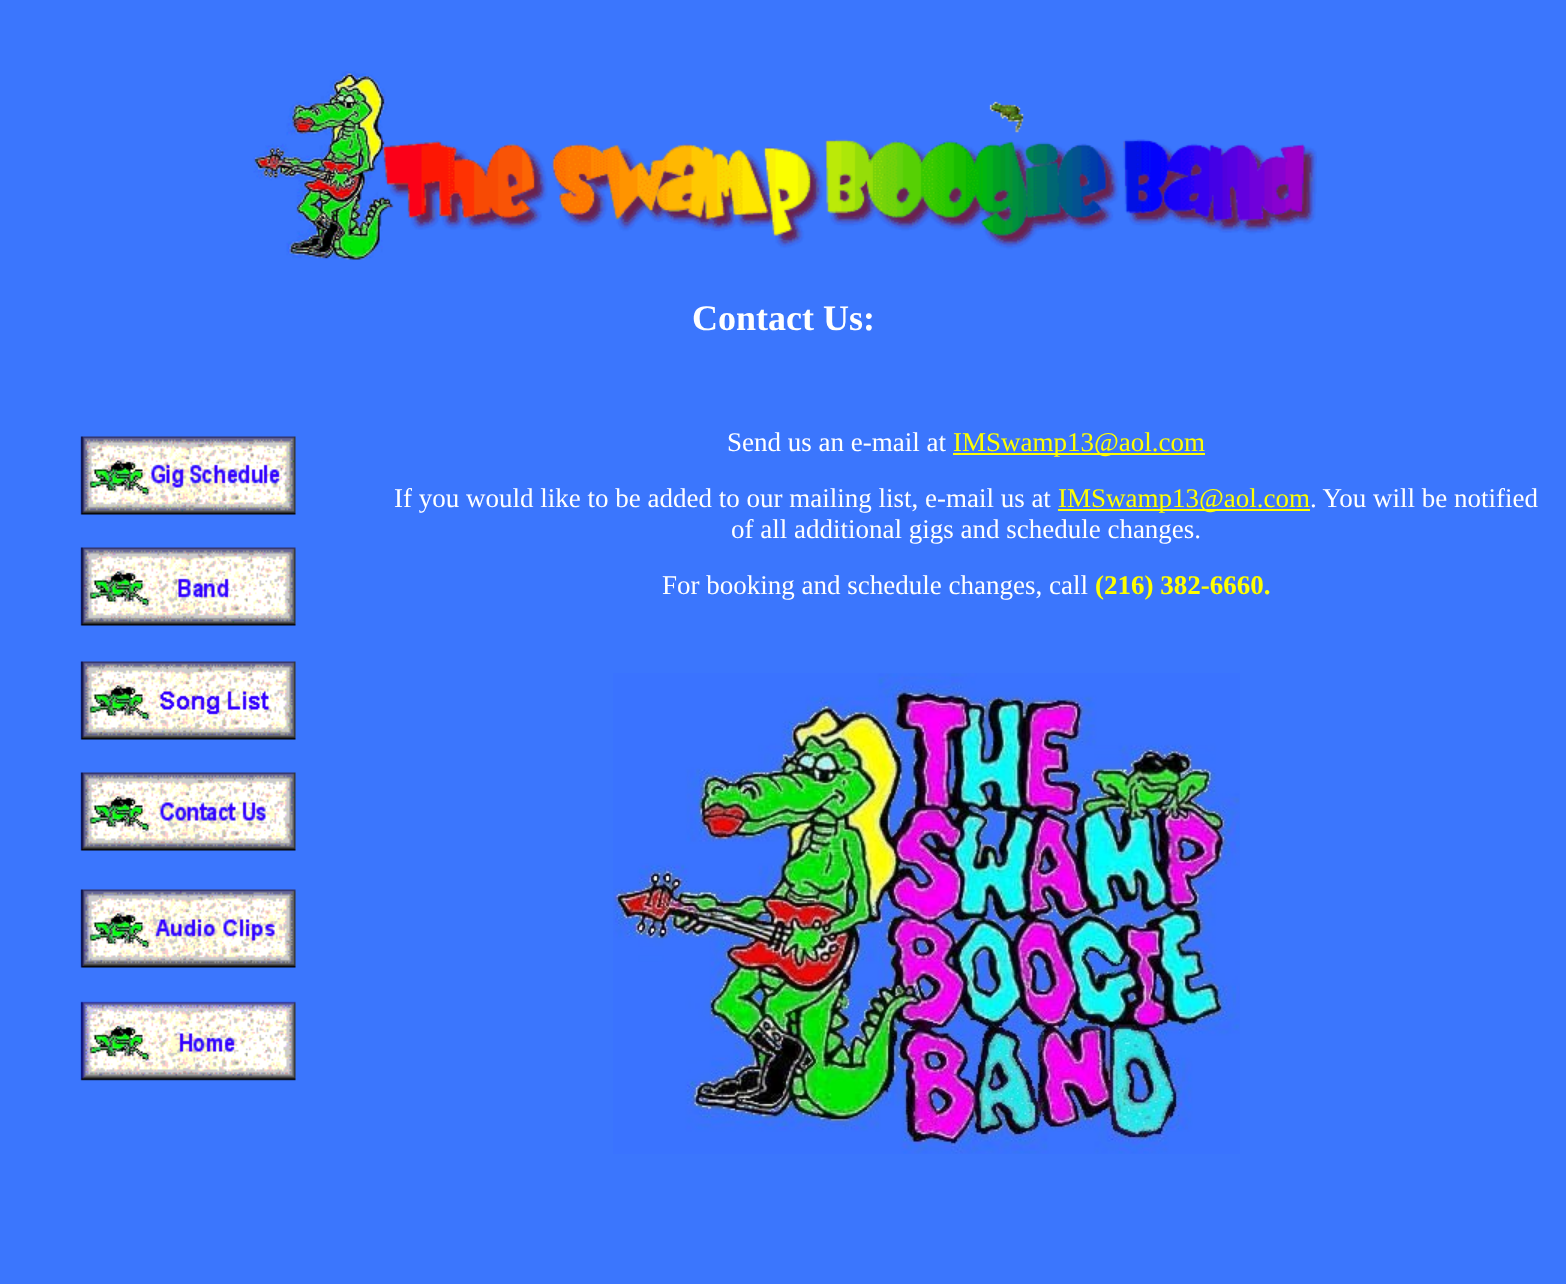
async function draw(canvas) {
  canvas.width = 1566
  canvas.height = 1284
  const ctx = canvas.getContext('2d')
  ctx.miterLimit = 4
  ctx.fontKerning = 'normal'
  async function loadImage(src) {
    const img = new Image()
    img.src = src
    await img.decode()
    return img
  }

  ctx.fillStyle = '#3b76fd'
  ctx.fillRect(0, 0, 1566, 1284)
  ctx.drawImage(await loadImage('image0.png'), 253, 71, 1064, 189)
  ctx.font = 'bold 36px Liberation Serif'
  ctx.fillStyle = '#fff'
  ctx.fillText('Contact Us:', 692, 330)
  ctx.drawImage(await loadImage('image1.png'), 80, 436, 216, 645)
  ctx.font = '27px Liberation Serif'
  ctx.fillText('Send us an e-mail at', 727, 451)
  ctx.fillStyle = '#ff0'
  ctx.fillRect(953, 453, 252, 2)
  ctx.fillText('IMSwamp13@aol.com', 953, 451)
  ctx.fillStyle = '#fff'
  ctx.fillText('If you would like to be added to our mailing list, e-mail us at', 394, 507)
  ctx.fillStyle = '#ff0'
  ctx.fillRect(1058, 509, 252, 2)
  ctx.fillText('IMSwamp13@aol.com', 1058, 507)
  ctx.fillStyle = '#fff'
  ctx.fillText('. You will be notified', 1310, 507)
  ctx.fillText('of all additional gigs and schedule changes.', 731, 538)
  ctx.fillText('For booking and schedule changes, call', 662, 594)
  ctx.font = 'bold 27px Liberation Serif'
  ctx.fillStyle = '#ff0'
  ctx.fillText('(216) 382-6660.', 1095, 594)
  ctx.drawImage(await loadImage('image2.png'), 613, 673, 627, 481)
}

draw(document.querySelector('canvas'))
